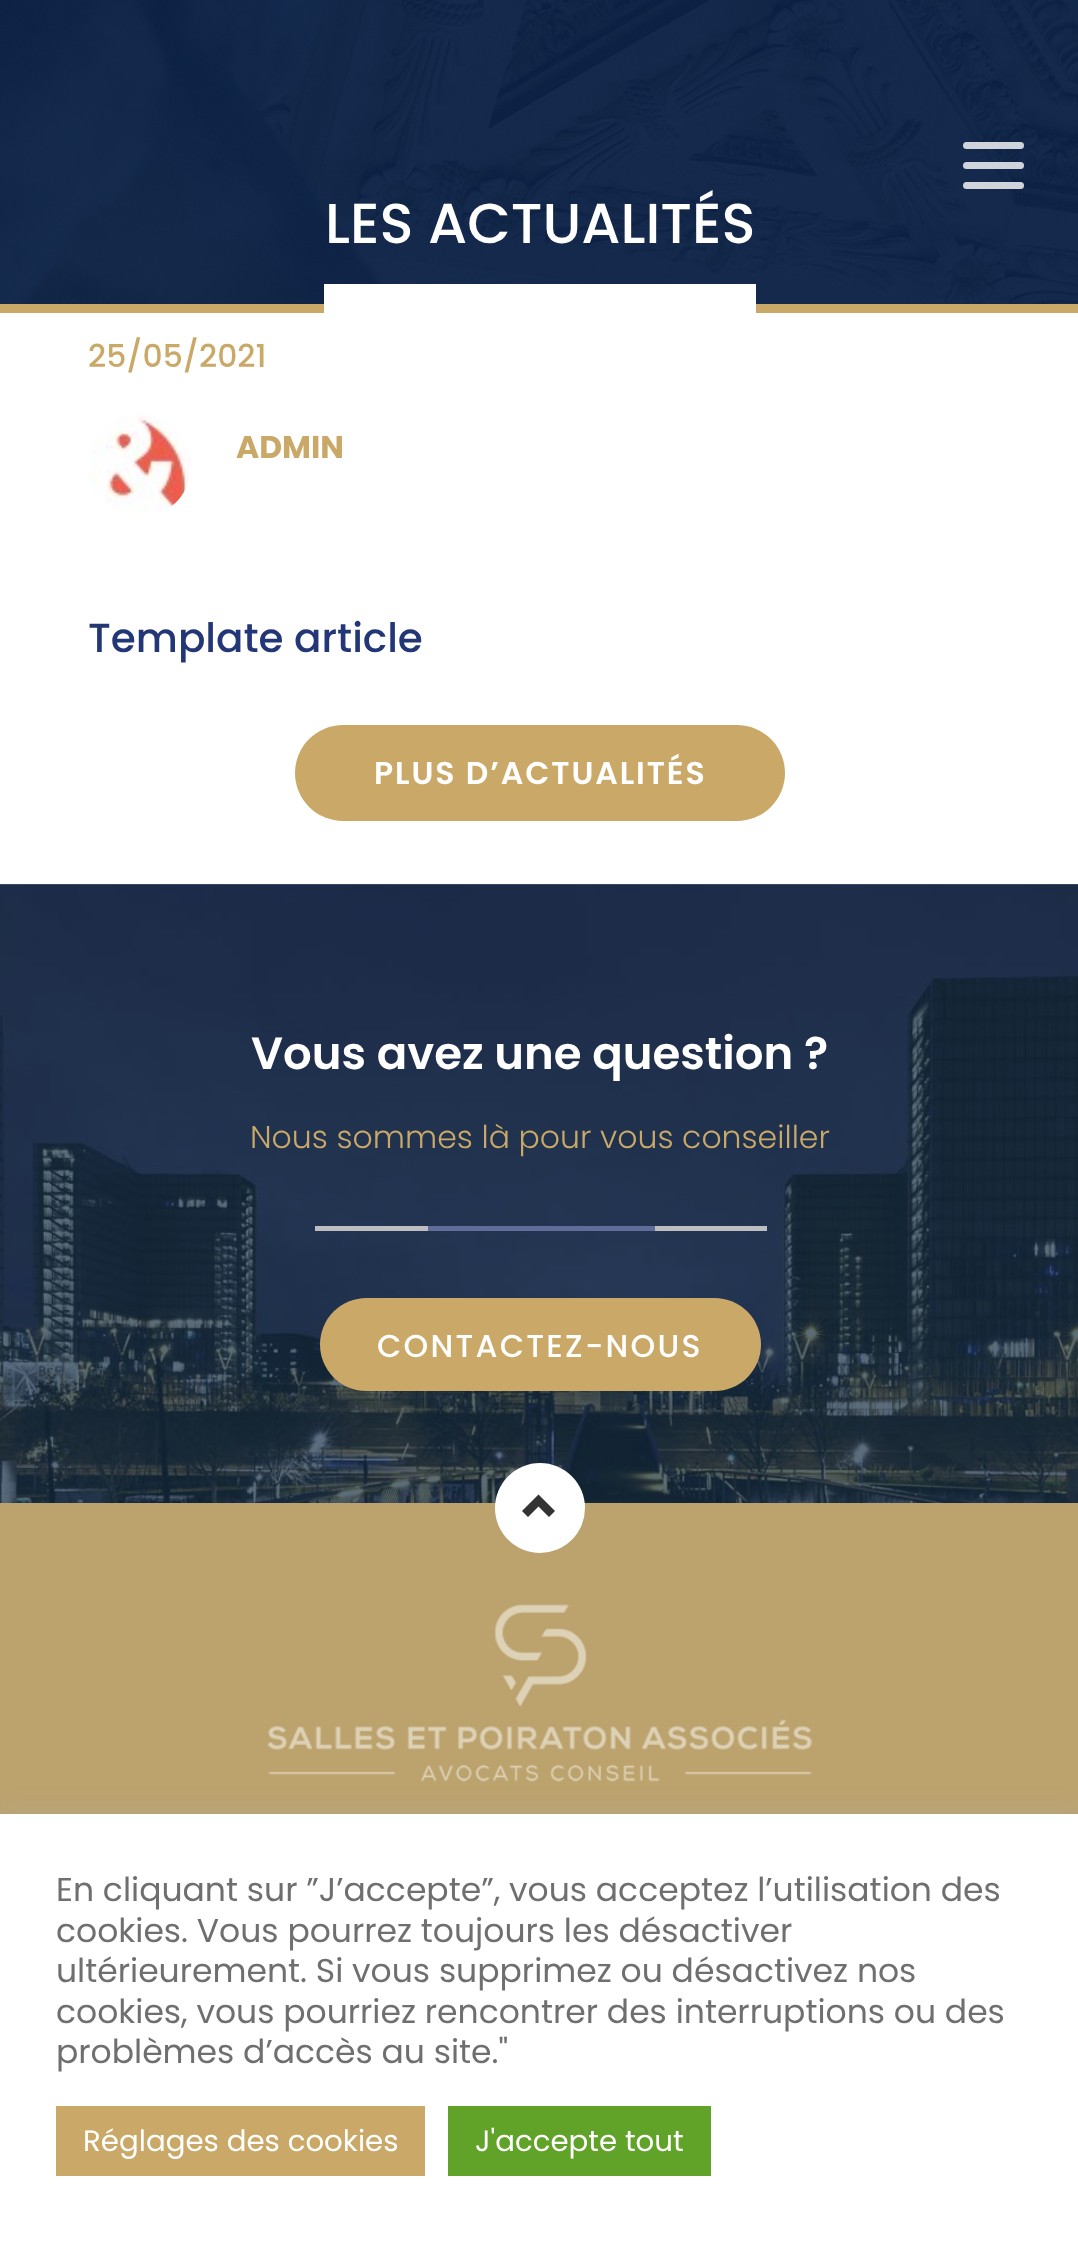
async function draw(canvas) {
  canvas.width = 1078
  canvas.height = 2243
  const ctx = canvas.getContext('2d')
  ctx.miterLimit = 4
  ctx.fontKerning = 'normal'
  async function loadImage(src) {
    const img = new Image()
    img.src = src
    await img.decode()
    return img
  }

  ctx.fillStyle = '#fff'
  ctx.fillRect(0, 0, 1078, 2243)
  ctx.fillStyle = '#5c6e7e'
  ctx.fillRect(0, 884, 1078, 1)
  ctx.drawImage(await loadImage('image0.png'), 0, 0, 1078, 304)
  ctx.fillStyle = '#ffffffcc'
  ctx.beginPath()
  ctx.roundRect(963, 142, 61, 7, 3.5)
  ctx.fill()
  ctx.beginPath()
  ctx.roundRect(963, 162, 61, 7, 3.5)
  ctx.fill()
  ctx.beginPath()
  ctx.roundRect(963, 182, 61, 7, 3.5)
  ctx.fill()
  ctx.font = '500 56.25px Poppins'
  ctx.fillStyle = '#fff'
  ctx.fillText('LES ACTUALITÉS', 325, 243)
  ctx.fillStyle = '#caa968'
  ctx.fillRect(0, 304, 1078, 9)
  ctx.fillStyle = '#fff'
  ctx.fillRect(324, 284, 432, 29)
  ctx.font = '500 31.5px Poppins'
  ctx.fillStyle = '#caa968'
  ctx.fillText('25/05/2021', 88, 367)
  ctx.drawImage(await loadImage('image1.png'), 89, 414, 102, 100)
  ctx.font = 'bold 31.5px Poppins'
  ctx.fillText('ADMIN', 236, 458)
  ctx.font = '500 40.5px Poppins'
  ctx.fillStyle = '#233776'
  ctx.fillText('Template article', 88, 652)
  ctx.fillStyle = '#caa968'
  ctx.beginPath()
  ctx.roundRect(295, 725, 490, 96, 48)
  ctx.fill()
  ctx.letterSpacing = '1.9px'
  ctx.font = '600 31.5px Poppins'
  ctx.fillStyle = '#fff'
  ctx.fillText('PLUS D’ACTUALITÉS', 374, 784)
  ctx.drawImage(await loadImage('image2.png'), 0, 884, 1078, 619)
  ctx.letterSpacing = '0px'
  ctx.font = '600 45px Poppins'
  ctx.fillText('Vous avez une question ?', 251, 1069)
  ctx.font = '300 31.5px Poppins'
  ctx.fillStyle = '#caa968'
  ctx.fillText('Nous sommes là pour vous conseiller', 250, 1148)
  ctx.fillStyle = '#bdbdc2'
  ctx.fillRect(315, 1226, 113, 5)
  ctx.fillStyle = '#5f6d98'
  ctx.fillRect(428, 1226, 227, 5)
  ctx.fillStyle = '#bdbdc2'
  ctx.fillRect(655, 1226, 112, 5)
  ctx.fillStyle = '#caa968'
  ctx.beginPath()
  ctx.roundRect(320, 1298, 441, 93, 46.5)
  ctx.fill()
  ctx.letterSpacing = '2.25px'
  ctx.font = '500 31.5px Poppins'
  ctx.fillStyle = '#fff'
  ctx.fillText('CONTACTEZ-NOUS', 377, 1357)
  ctx.fillStyle = '#bca36e'
  ctx.fillRect(0, 1503, 1078, 311)
  ctx.fillStyle = '#fff'
  ctx.beginPath()
  ctx.arc(540, 1508, 45, 0, 2 * Math.PI)
  ctx.fill()
  ctx.fillStyle = '#333'
  ctx.beginPath()
  ctx.moveTo(538.5, 1494.5)
  ctx.lineTo(555, 1511)
  ctx.lineTo(549, 1517)
  ctx.lineTo(538.5, 1506.5)
  ctx.lineTo(528, 1517)
  ctx.lineTo(522, 1511)
  ctx.closePath()
  ctx.fill()
  ctx.drawImage(await loadImage('image3.png'), 267, 1604, 546, 178)
  ctx.fillStyle = '#acabab4d'
  ctx.filter = 'blur(11px)'
  ctx.beginPath()
  ctx.rect(0, 1811, 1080, 430)
  ctx.fill()
  ctx.filter = 'none'
  ctx.fillStyle = '#fff'
  ctx.fillRect(0, 1814, 1078, 429)
  ctx.letterSpacing = '0px'
  ctx.font = '33px Poppins'
  ctx.fillStyle = '#6f6f6f'
  ctx.fillText('En cliquant sur ”J’accepte”, vous acceptez l’utilisation des', 56, 1901)
  ctx.fillText('cookies. Vous pourrez toujours les désactiver', 56, 1942)
  ctx.fillText('ultérieurement. Si vous supprimez ou désactivez nos', 56, 1982)
  ctx.fillText('cookies, vous pourriez rencontrer des interruptions ou des', 56, 2023)
  ctx.fillText('problèmes d’accès au site."', 56, 2063)
  ctx.fillStyle = '#caa968'
  ctx.fillRect(56, 2106, 369, 70)
  ctx.font = '29.25px Poppins'
  ctx.fillStyle = '#fff'
  ctx.fillText('Réglages des cookies', 83, 2151)
  ctx.fillStyle = '#61a229'
  ctx.fillRect(448, 2106, 263, 70)
  ctx.fillStyle = '#fff'
  ctx.fillText('J\'accepte tout', 475, 2151)
}

draw(document.querySelector('canvas'))
